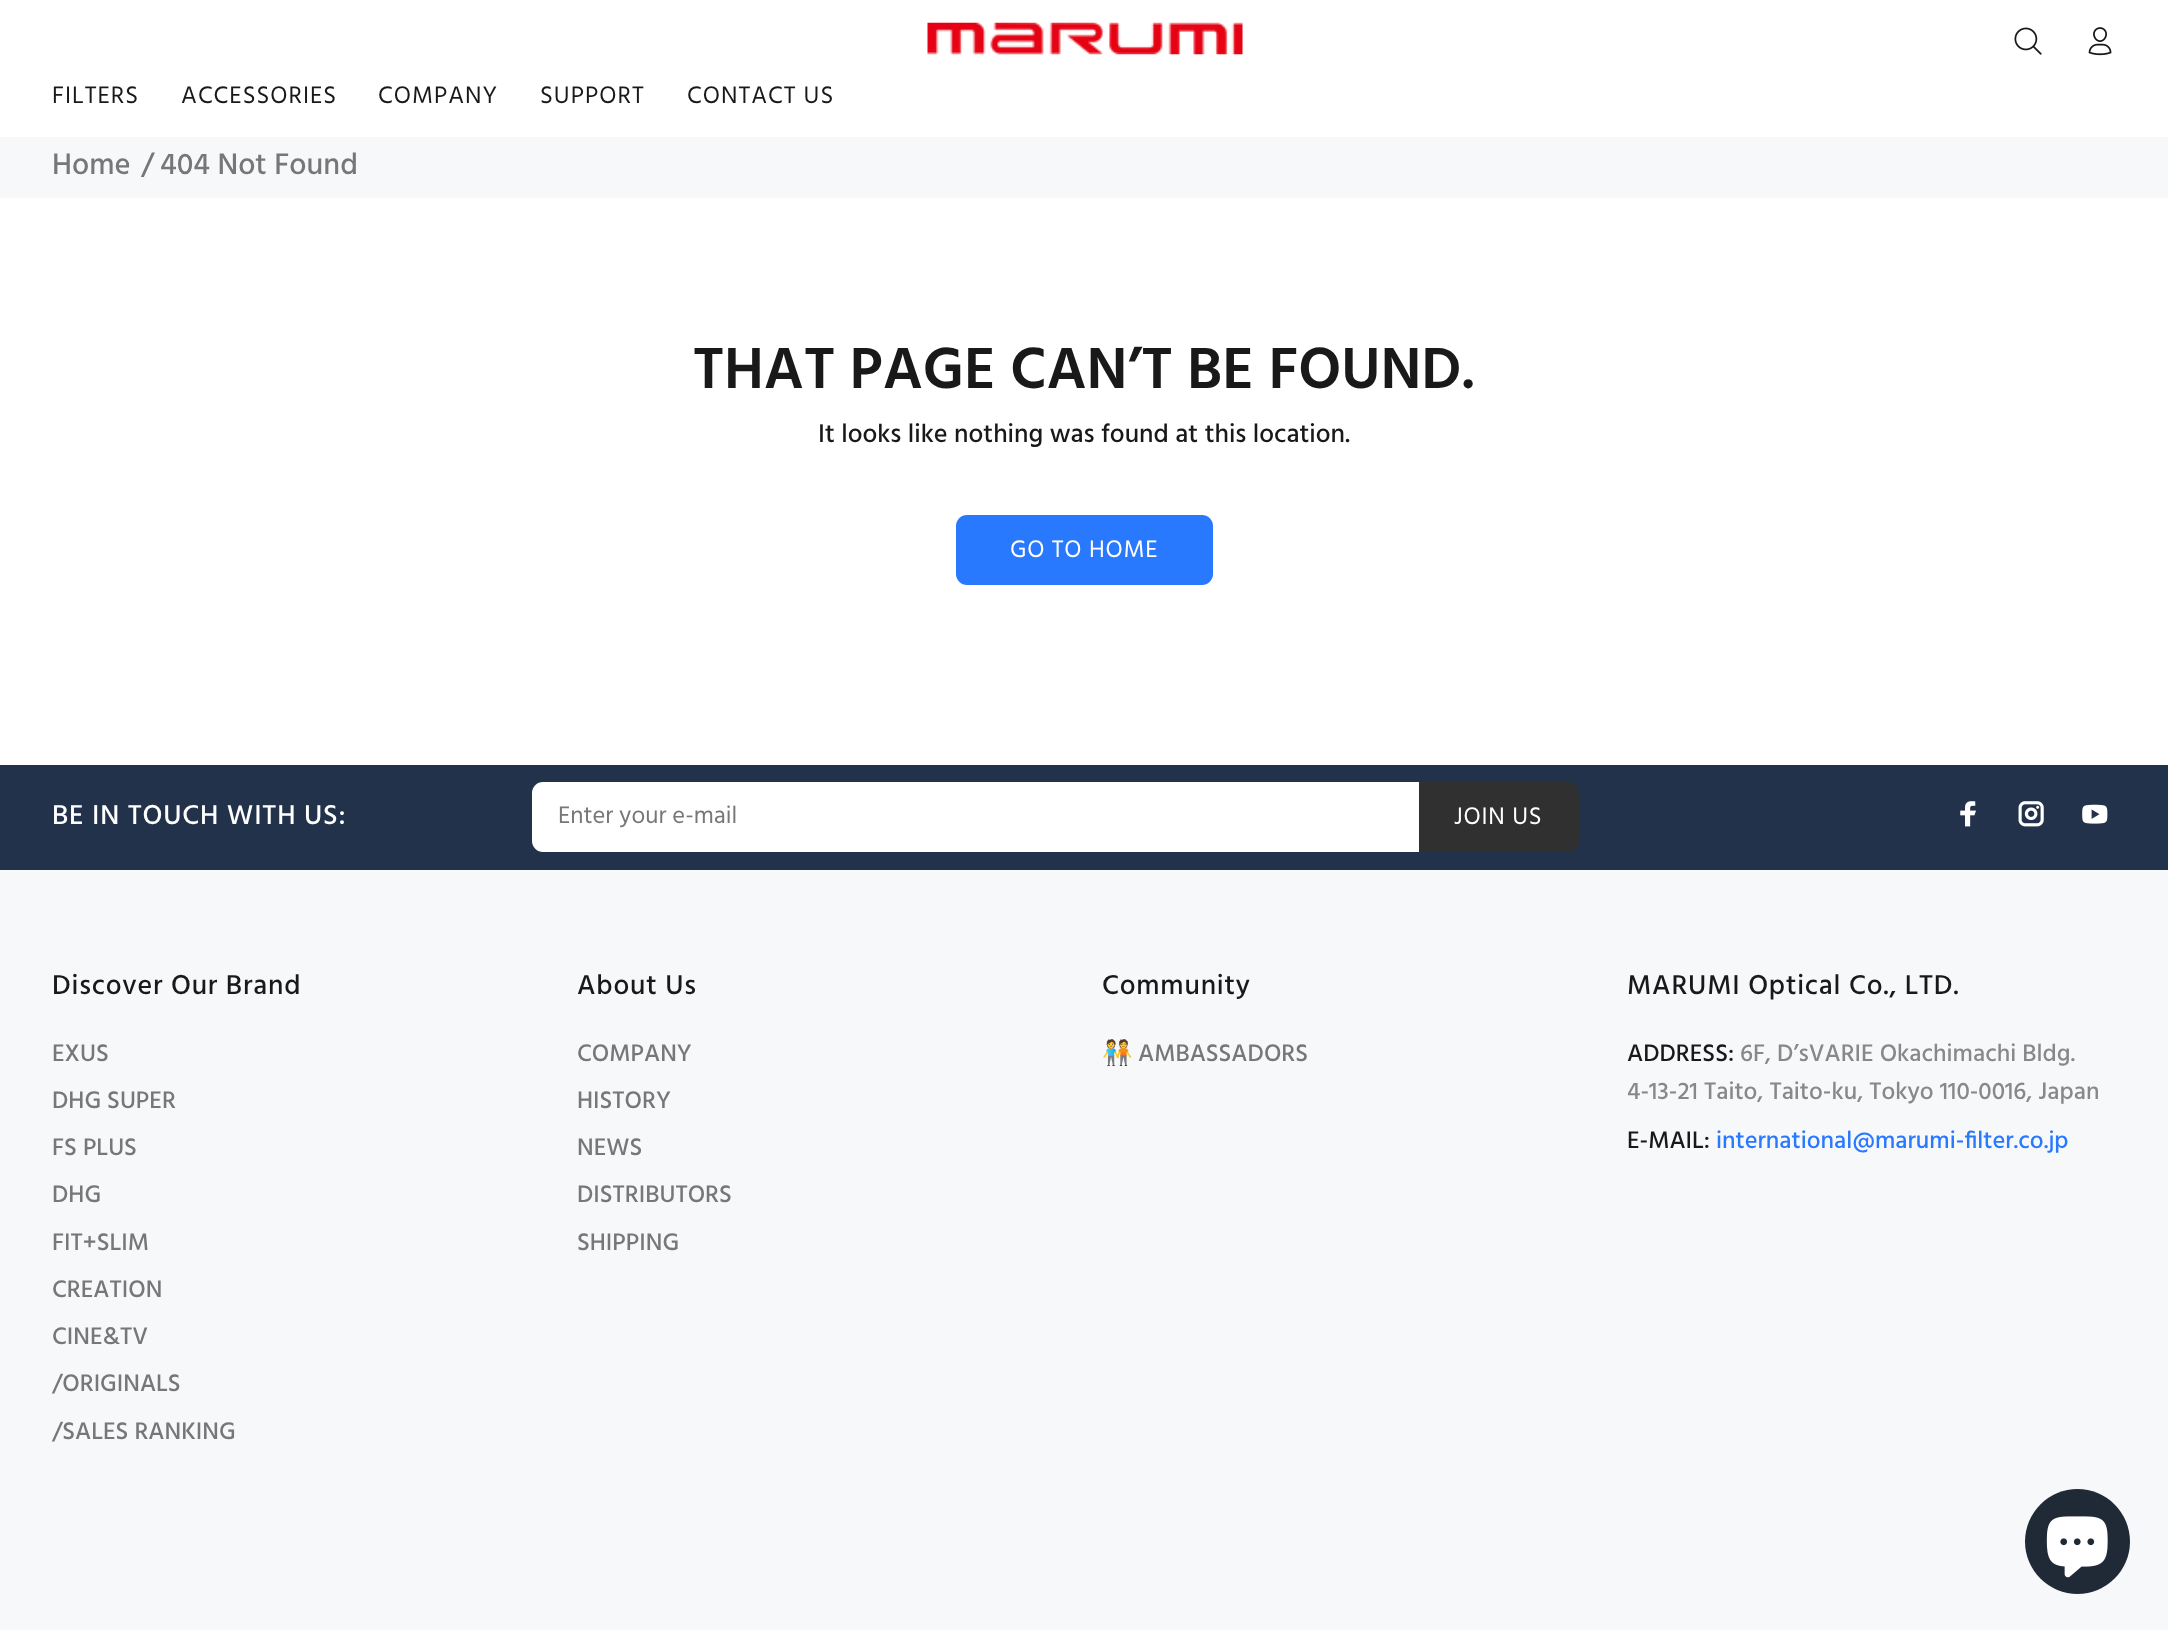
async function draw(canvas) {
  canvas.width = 2168
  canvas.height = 1630
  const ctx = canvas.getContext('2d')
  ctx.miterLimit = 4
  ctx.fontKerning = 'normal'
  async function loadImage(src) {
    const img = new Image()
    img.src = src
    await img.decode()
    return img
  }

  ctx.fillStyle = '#fff'
  ctx.fillRect(0, 0, 2168, 1630)
  ctx.drawImage(await loadImage('image0.png'), 927, 22, 316, 33)
  ctx.drawImage(await loadImage('image1.png'), 2014, 27, 28, 28)
  ctx.drawImage(await loadImage('image2.png'), 2088, 27, 24, 29)
  ctx.letterSpacing = '1px'
  ctx.font = '24.5px Hind'
  ctx.fillStyle = '#191919'
  ctx.fillText('FILTERS', 52, 103)
  ctx.fillText('ACCESSORIES', 181, 103)
  ctx.fillText('COMPANY', 378, 103)
  ctx.fillText('SUPPORT', 540, 103)
  ctx.fillText('CONTACT US', 687, 103)
  ctx.fillStyle = '#f7f8fa'
  ctx.fillRect(0, 137, 2168, 61)
  ctx.letterSpacing = '0px'
  ctx.font = '500 30.5px Hind'
  ctx.fillStyle = '#777'
  ctx.fillText('Home', 52, 174)
  ctx.fillText('/', 141, 174)
  ctx.fillText('404 Not Found', 160, 174)
  ctx.font = '600 59.5px Hind'
  ctx.fillStyle = '#191919'
  ctx.fillText('THAT PAGE CAN’T BE FOUND.', 693, 388)
  ctx.font = '500 26.25px Hind'
  ctx.fillText('It looks like nothing was found at this location.', 818, 442)
  ctx.fillStyle = '#2879fe'
  ctx.beginPath()
  ctx.roundRect(956, 515, 257, 70, 11)
  ctx.fill()
  ctx.letterSpacing = '0.75px'
  ctx.font = '24.5px Hind'
  ctx.fillStyle = '#fff'
  ctx.fillText('GO TO HOME', 1010, 557)
  ctx.fillStyle = '#f7f8fa'
  ctx.fillRect(0, 870, 2168, 760)
  ctx.fillStyle = '#23324b'
  ctx.fillRect(0, 765, 2168, 105)
  ctx.letterSpacing = '0.8px'
  ctx.font = '500 28px Hind'
  ctx.fillStyle = '#fff'
  ctx.fillText('BE IN TOUCH WITH US:', 52, 824)
  ctx.beginPath()
  ctx.roundRect(532, 782, 887, 70, [11, 0, 0, 11])
  ctx.fill()
  ctx.letterSpacing = '0px'
  ctx.font = '24.5px Hind'
  ctx.fillStyle = '#777'
  ctx.fillText('Enter your e-mail', 558, 823)
  ctx.fillStyle = '#303030'
  ctx.beginPath()
  ctx.roundRect(1419, 782, 160, 70, [0, 11, 11, 0])
  ctx.fill()
  ctx.letterSpacing = '0.75px'
  ctx.fillStyle = '#fff'
  ctx.fillText('JOIN US', 1454, 824)
  ctx.drawImage(await loadImage('image3.png'), 1960, 801, 16, 26)
  ctx.drawImage(await loadImage('image4.png'), 2018, 801, 26, 26)
  ctx.drawImage(await loadImage('image5.png'), 2082, 804, 26, 20)
  ctx.letterSpacing = '0.8px'
  ctx.font = '500 28px Hind'
  ctx.fillStyle = '#191919'
  ctx.fillText('Discover Our Brand', 52, 994)
  ctx.letterSpacing = '0px'
  ctx.font = '500 24.5px Hind'
  ctx.fillStyle = '#777'
  ctx.fillText('EXUS', 52, 1061)
  ctx.fillText('DHG SUPER', 52, 1108)
  ctx.fillText('FS PLUS', 52, 1155)
  ctx.fillText('DHG', 52, 1202)
  ctx.fillText('FIT+SLIM', 52, 1250)
  ctx.fillText('CREATION', 52, 1297)
  ctx.fillText('CINE&TV', 52, 1344)
  ctx.fillText('/ORIGINALS', 52, 1391)
  ctx.fillText('/SALES RANKING', 52, 1439)
  ctx.letterSpacing = '0.8px'
  ctx.font = '500 28px Hind'
  ctx.fillStyle = '#191919'
  ctx.fillText('About Us', 577, 994)
  ctx.letterSpacing = '0px'
  ctx.font = '500 24.5px Hind'
  ctx.fillStyle = '#777'
  ctx.fillText('COMPANY', 577, 1061)
  ctx.fillText('HISTORY', 577, 1108)
  ctx.fillText('NEWS', 577, 1155)
  ctx.fillText('DISTRIBUTORS', 577, 1202)
  ctx.fillText('SHIPPING', 577, 1250)
  ctx.letterSpacing = '0.8px'
  ctx.font = '500 28px Hind'
  ctx.fillStyle = '#191919'
  ctx.fillText('Community', 1102, 994)
  ctx.letterSpacing = '0px'
  ctx.font = '24.5px Noto Color Emoji'
  ctx.fillStyle = '#777'
  ctx.fillText('🧑‍🤝‍🧑', 1102, 1061)
  ctx.font = '500 24.5px Hind'
  ctx.fillText('AMBASSADORS', 1138, 1061)
  ctx.letterSpacing = '0.8px'
  ctx.font = '500 28px Hind'
  ctx.fillStyle = '#191919'
  ctx.fillText('MARUMI Optical Co., LTD.', 1627, 994)
  ctx.letterSpacing = '0px'
  ctx.font = '500 24.5px Hind'
  ctx.fillText('ADDRESS:', 1627, 1061)
  ctx.fillStyle = '#888'
  ctx.fillText('6F, D’sVARIE Okachimachi Bldg.', 1740, 1061)
  ctx.fillText('4-13-21 Taito, Taito-ku, Tokyo 110-0016, Japan', 1627, 1099)
  ctx.fillStyle = '#191919'
  ctx.fillText('E-MAIL:', 1627, 1148)
  ctx.fillStyle = '#2879fe'
  ctx.fillText('international@marumi-filter.co.jp', 1716, 1148)
  ctx.fillStyle = '#202a36'
  ctx.beginPath()
  ctx.arc(2077.5, 1541.5, 52.5, 0, 2 * Math.PI)
  ctx.fill()
  ctx.drawImage(await loadImage('image6.png'), 2046, 1516, 62, 62)
}

draw(document.querySelector('canvas'))
